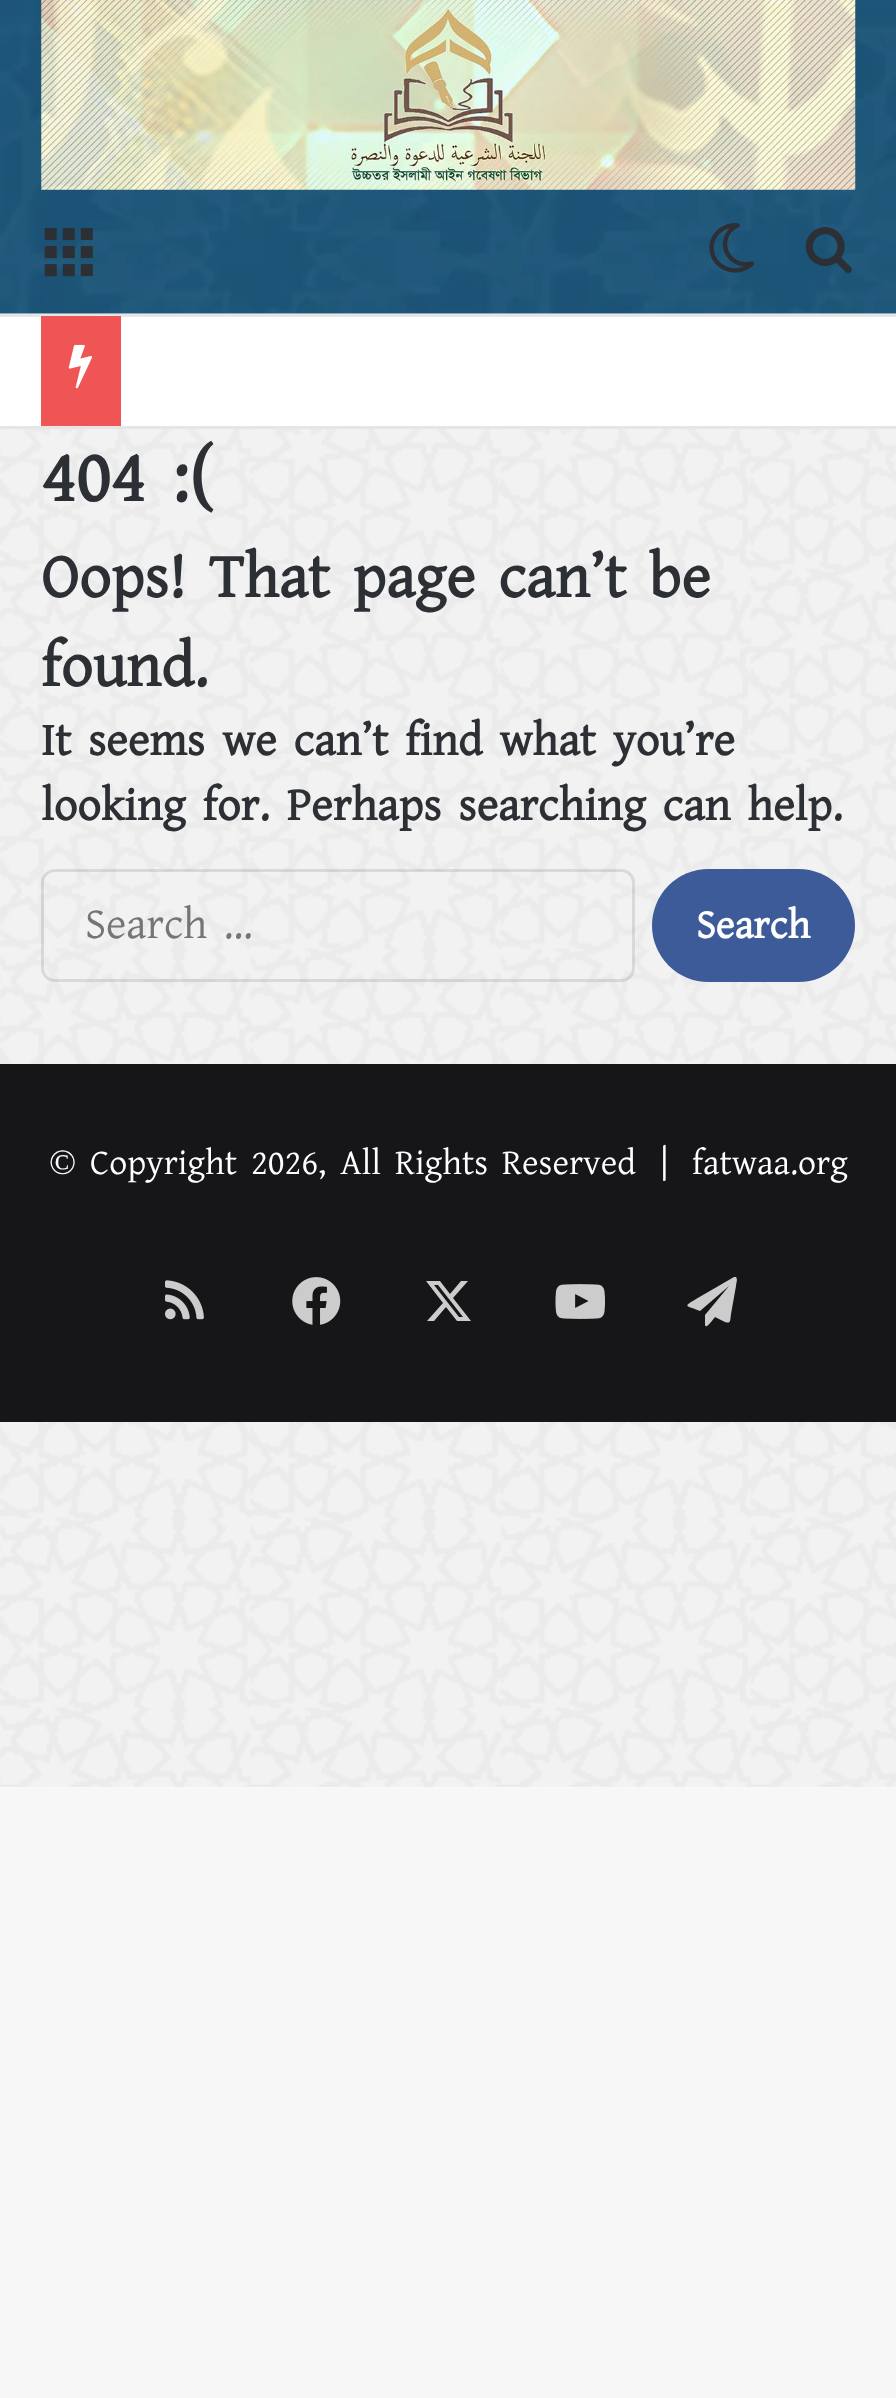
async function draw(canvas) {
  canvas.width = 896
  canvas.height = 2398
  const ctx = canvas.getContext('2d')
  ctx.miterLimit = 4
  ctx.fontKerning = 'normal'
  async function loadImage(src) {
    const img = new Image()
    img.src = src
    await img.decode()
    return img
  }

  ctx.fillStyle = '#f7f7f7'
  ctx.fillRect(0, 0, 896, 2398)
  ctx.fillStyle = '#fff'
  ctx.fillRect(0, 429, 896, 1359)
  ctx.drawImage(await loadImage('image0.png'), 0, 429, 896, 1359)
  ctx.fillRect(0, 313, 896, 1)
  ctx.drawImage(await loadImage('image1.png'), 0, 0, 896, 314)
  ctx.drawImage(await loadImage('image2.png'), 41, 0, 815, 190)
  ctx.drawImage(await loadImage('image3.png'), 44, 228, 49, 49)
  ctx.drawImage(await loadImage('image4.png'), 709, 223, 46, 50)
  ctx.drawImage(await loadImage('image5.png'), 805, 227, 47, 46)
  ctx.fillRect(0, 317, 896, 109)
  ctx.fillStyle = '#e6e6e6'
  ctx.fillRect(0, 314, 896, 3)
  ctx.fillRect(0, 426, 896, 3)
  ctx.fillStyle = '#f05555'
  ctx.fillRect(41, 316, 80, 110)
  ctx.drawImage(await loadImage('image6.png'), 68, 344, 25, 45)
  ctx.font = 'bold 74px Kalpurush'
  ctx.fillStyle = '#2c2f34'
  ctx.fillText('404 :(', 41, 501)
  ctx.font = 'bold 63.25px Kalpurush'
  ctx.fillText('Oops! That page can’t be', 41, 597)
  ctx.fillText('found.', 41, 686)
  ctx.font = 'bold 46.75px Kalpurush'
  ctx.fillText('It seems we can’t find what you’re', 41, 755)
  ctx.fillText('looking for. Perhaps searching can help.', 41, 820)
  ctx.beginPath()
  ctx.roundRect(42.5, 870.5, 591, 110, 12.5)
  ctx.strokeStyle = '#0000001a'
  ctx.lineWidth = 3
  ctx.stroke()
  ctx.font = '44px Kalpurush'
  ctx.fillStyle = '#757575'
  ctx.fillText('Search …', 85, 938)
  ctx.fillStyle = '#3d5a99'
  ctx.beginPath()
  ctx.roundRect(652, 869, 203, 113, 56.5)
  ctx.fill()
  ctx.font = 'bold 41px Kalpurush'
  ctx.fillStyle = '#fff'
  ctx.fillText('Search', 696, 938)
  ctx.fillStyle = '#161619'
  ctx.fillRect(0, 1064, 896, 358)
  ctx.font = '35.75px Liberation Serif'
  ctx.fillStyle = '#fff'
  ctx.fillText('©', 49, 1174)
  ctx.wordSpacing = '1px'
  ctx.font = '35.75px Kalpurush'
  ctx.fillText('Copyright 2026, All Rights Reserved', 90, 1174)
  ctx.wordSpacing = '0px'
  ctx.fillText('|', 660, 1174)
  ctx.fillText('fatwaa.org', 692, 1174)
  ctx.drawImage(await loadImage('image7.png'), 165, 1280, 39, 40)
  ctx.drawImage(await loadImage('image8.png'), 292, 1277, 49, 48)
  ctx.fillStyle = '#ccc'
  ctx.beginPath()
  ctx.moveTo(461, 1281)
  ctx.lineTo(468, 1281)
  ctx.lineTo(453, 1298)
  ctx.lineTo(471, 1321)
  ctx.lineTo(457, 1321)
  ctx.lineTo(446, 1307)
  ctx.lineTo(434, 1321)
  ctx.lineTo(427, 1321)
  ctx.lineTo(443, 1303)
  ctx.lineTo(426, 1281)
  ctx.lineTo(440, 1281)
  ctx.lineTo(450, 1294)
  ctx.closePath()
  ctx.moveTo(459, 1317)
  ctx.lineTo(463, 1317)
  ctx.lineTo(438, 1285)
  ctx.lineTo(434, 1285)
  ctx.closePath()
  ctx.fill()
  ctx.drawImage(await loadImage('image9.png'), 555, 1284, 50, 35)
  ctx.beginPath()
  ctx.moveTo(736, 1277)
  ctx.bezierCurveTo(738, 1279, 736, 1284, 736, 1286)
  ctx.lineTo(731, 1314)
  ctx.bezierCurveTo(730, 1321, 731, 1324, 725, 1322)
  ctx.lineTo(715, 1317)
  ctx.bezierCurveTo(708, 1326, 706, 1328, 705, 1325)
  ctx.lineTo(705, 1315)
  ctx.lineTo(729, 1286)
  ctx.lineTo(700, 1311)
  ctx.bezierCurveTo(685, 1305, 683, 1307, 696, 1299)
  ctx.lineTo(734, 1277)
  ctx.closePath()
  ctx.fill()
}

draw(document.querySelector('canvas'))
